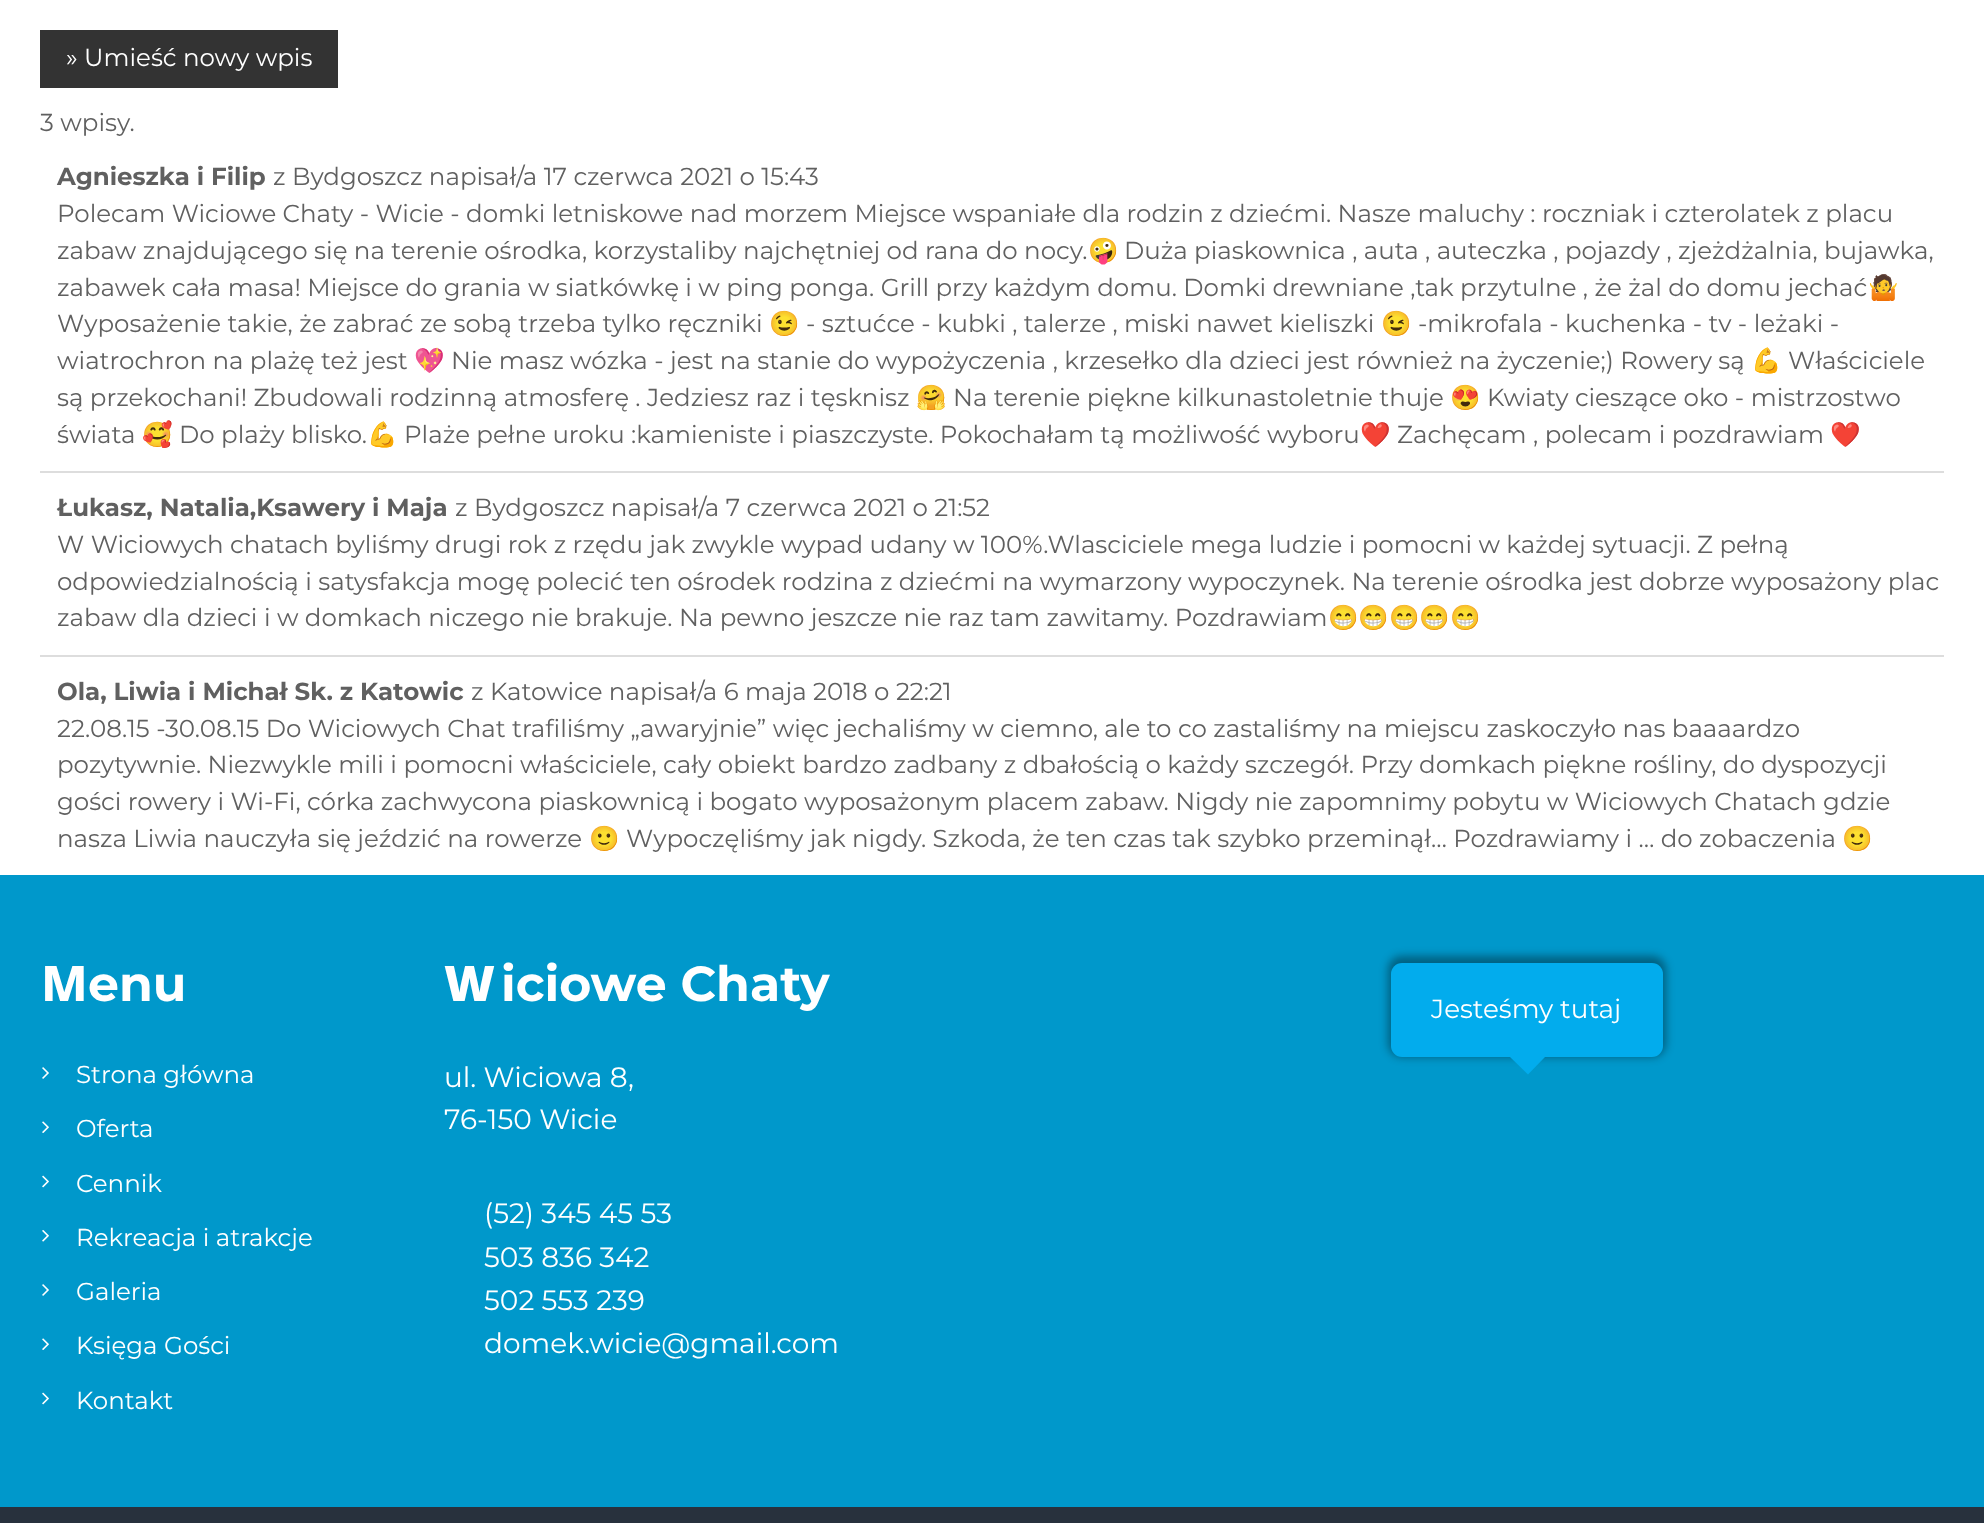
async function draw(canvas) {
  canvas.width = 1984
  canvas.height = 1523
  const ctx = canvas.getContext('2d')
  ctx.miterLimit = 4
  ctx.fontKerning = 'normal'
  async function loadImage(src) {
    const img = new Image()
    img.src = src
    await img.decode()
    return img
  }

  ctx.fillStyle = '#fff'
  ctx.fillRect(0, 0, 1984, 1523)
  ctx.fillStyle = '#333'
  ctx.fillRect(40, 30, 298, 58)
  ctx.font = '24.5px Montserrat'
  ctx.fillStyle = '#fff'
  ctx.fillText('» Umieść nowy wpis', 66, 66)
  ctx.fillStyle = '#606060'
  ctx.fillText('3 wpisy.', 40, 131)
  ctx.font = 'bold 24.5px Montserrat'
  ctx.fillText('Agnieszka i Filip', 57, 185)
  ctx.font = '24.5px Montserrat'
  ctx.fillText('z Bydgoszcz napisał/a 17 czerwca 2021 o 15:43', 273, 185)
  ctx.fillText('Polecam Wiciowe Chaty - Wicie - domki letniskowe nad morzem Miejsce wspaniałe dla rodzin z dziećmi. Nasze maluchy : roczniak i czterolatek z placu', 57, 222)
  ctx.fillText('zabaw znajdującego się na terenie ośrodka, korzystaliby najchętniej od rana do nocy.', 57, 259)
  ctx.font = '24.5px Noto Color Emoji'
  ctx.fillText('🤪', 1088, 259)
  ctx.font = '24.5px Montserrat'
  ctx.fillText('Duża piaskownica , auta , auteczka , pojazdy , zjeżdżalnia, bujawka,', 1124, 259)
  ctx.fillText('zabawek cała masa! Miejsce do grania w siatkówkę i w ping ponga. Grill przy każdym domu. Domki drewniane ,tak przytulne , że żal do domu jechać', 57, 296)
  ctx.font = '24.5px Noto Color Emoji'
  ctx.fillText('🤷', 1868, 296)
  ctx.font = '24.5px Montserrat'
  ctx.fillText('Wyposażenie takie, że zabrać ze sobą trzeba tylko ręczniki', 57, 332)
  ctx.font = '24.5px Noto Color Emoji'
  ctx.fillText('😉', 769, 332)
  ctx.font = '24.5px Montserrat'
  ctx.fillText('- sztućce - kubki , talerze , miski nawet kieliszki', 806, 332)
  ctx.font = '24.5px Noto Color Emoji'
  ctx.fillText('😉', 1381, 332)
  ctx.font = '24.5px Montserrat'
  ctx.fillText('-mikrofala - kuchenka - tv - leżaki -', 1418, 332)
  ctx.fillText('wiatrochron na plażę też jest', 57, 369)
  ctx.font = '24.5px Noto Color Emoji'
  ctx.fillText('💖', 414, 369)
  ctx.font = '24.5px Montserrat'
  ctx.fillText('Nie masz wózka - jest na stanie do wypożyczenia , krzesełko dla dzieci jest również na życzenie;) Rowery są', 451, 369)
  ctx.font = '24.5px Noto Color Emoji'
  ctx.fillText('💪', 1751, 369)
  ctx.font = '24.5px Montserrat'
  ctx.fillText('Właściciele', 1788, 369)
  ctx.fillText('są przekochani! Zbudowali rodzinną atmosferę . Jedziesz raz i tęsknisz', 57, 406)
  ctx.font = '24.5px Noto Color Emoji'
  ctx.fillText('🤗', 916, 406)
  ctx.font = '24.5px Montserrat'
  ctx.fillText('Na terenie piękne kilkunastoletnie thuje', 953, 406)
  ctx.font = '24.5px Noto Color Emoji'
  ctx.fillText('😍', 1450, 406)
  ctx.font = '24.5px Montserrat'
  ctx.fillText('Kwiaty cieszące oko - mistrzostwo', 1487, 406)
  ctx.fillText('świata', 57, 443)
  ctx.font = '24.5px Noto Color Emoji'
  ctx.fillText('🥰', 142, 443)
  ctx.font = '24.5px Montserrat'
  ctx.fillText('Do plaży blisko.', 179, 443)
  ctx.font = '24.5px Noto Color Emoji'
  ctx.fillText('💪', 367, 443)
  ctx.font = '24.5px Montserrat'
  ctx.fillText('Plaże pełne uroku :kamieniste i piaszczyste. Pokochałam tą możliwość wyboru', 404, 443)
  ctx.font = '24.5px Noto Color Emoji'
  ctx.fillText('❤️', 1360, 443)
  ctx.font = '24.5px Montserrat'
  ctx.fillText('Zachęcam , polecam i pozdrawiam', 1397, 443)
  ctx.font = '24.5px Noto Color Emoji'
  ctx.fillText('❤️', 1830, 443)
  ctx.fillStyle = '#ddd'
  ctx.fillRect(40, 471, 1904, 2)
  ctx.font = 'bold 24.5px Montserrat'
  ctx.fillStyle = '#606060'
  ctx.fillText('Łukasz, Natalia,Ksawery i Maja', 57, 516)
  ctx.font = '24.5px Montserrat'
  ctx.fillText('z Bydgoszcz napisał/a 7 czerwca 2021 o 21:52', 455, 516)
  ctx.fillText('W Wiciowych chatach byliśmy drugi rok z rzędu jak zwykle wypad udany w 100%.Wlasciciele mega ludzie i pomocni w każdej sytuacji. Z pełną', 57, 553)
  ctx.fillText('odpowiedzialnością i satysfakcja mogę polecić ten ośrodek rodzina z dziećmi na wymarzony wypoczynek. Na terenie ośrodka jest dobrze wyposażony plac', 57, 590)
  ctx.fillText('zabaw dla dzieci i w domkach niczego nie brakuje. Na pewno jeszcze nie raz tam zawitamy. Pozdrawiam', 57, 626)
  ctx.font = '24.5px Noto Color Emoji'
  ctx.fillText('😁😁😁😁😁', 1328, 626)
  ctx.fillStyle = '#ddd'
  ctx.fillRect(40, 655, 1904, 2)
  ctx.font = 'bold 24.5px Montserrat'
  ctx.fillStyle = '#606060'
  ctx.fillText('Ola, Liwia i Michał Sk. z Katowic', 57, 700)
  ctx.font = '24.5px Montserrat'
  ctx.fillText('z Katowice napisał/a 6 maja 2018 o 22:21', 471, 700)
  ctx.fillText('22.08.15 -30.08.15 Do Wiciowych Chat trafiliśmy „awaryjnie” więc jechaliśmy w ciemno, ale to co zastaliśmy na miejscu zaskoczyło nas baaaardzo', 57, 737)
  ctx.fillText('pozytywnie. Niezwykle mili i pomocni właściciele, cały obiekt bardzo zadbany z dbałością o każdy szczegół. Przy domkach piękne rośliny, do dyspozycji', 57, 773)
  ctx.fillText('gości rowery i Wi-Fi, córka zachwycona piaskownicą i bogato wyposażonym placem zabaw. Nigdy nie zapomnimy pobytu w Wiciowych Chatach gdzie', 57, 810)
  ctx.fillText('nasza Liwia nauczyła się jeździć na rowerze', 57, 847)
  ctx.font = '24.5px Noto Color Emoji'
  ctx.fillText('🙂', 589, 847)
  ctx.font = '24.5px Montserrat'
  ctx.fillText('Wypoczęliśmy jak nigdy. Szkoda, że ten czas tak szybko przeminął… Pozdrawiamy i … do zobaczenia', 626, 847)
  ctx.font = '24.5px Noto Color Emoji'
  ctx.fillText('🙂', 1842, 847)
  ctx.fillStyle = '#0098cb'
  ctx.fillRect(0, 875, 1984, 632)
  ctx.font = '800 49px Noto Sans'
  ctx.fillStyle = '#fff'
  ctx.fillText('M', 41, 1001)
  ctx.font = 'bold 49px Montserrat'
  ctx.fillText('enu', 88, 1001)
  ctx.drawImage(await loadImage('image0.png'), 42, 1067, 7, 12)
  ctx.font = '24.5px Montserrat'
  ctx.fillText('Strona główna', 76, 1083)
  ctx.drawImage(await loadImage('image1.png'), 42, 1121, 7, 12)
  ctx.fillText('Oferta', 76, 1137)
  ctx.drawImage(await loadImage('image2.png'), 42, 1175, 7, 13)
  ctx.fillText('Cennik', 76, 1192)
  ctx.drawImage(await loadImage('image3.png'), 42, 1230, 7, 12)
  ctx.fillText('Rekreacja i atrakcje', 76, 1246)
  ctx.drawImage(await loadImage('image0.png'), 42, 1284, 7, 12)
  ctx.fillText('Galeria', 76, 1300)
  ctx.drawImage(await loadImage('image1.png'), 42, 1338, 7, 12)
  ctx.fillText('Księga Gości', 76, 1354)
  ctx.drawImage(await loadImage('image2.png'), 42, 1392, 7, 13)
  ctx.fillText('Kontakt', 76, 1409)
  ctx.font = '900 49px Noto Sans'
  ctx.fillText('W', 444, 1001)
  ctx.font = 'bold 49px Montserrat'
  ctx.fillText('iciowe Chaty', 501, 1001)
  ctx.font = '28px Montserrat'
  ctx.fillText('ul. Wiciowa 8,', 444, 1087)
  ctx.fillText('76-150 Wicie', 444, 1129)
  ctx.fillText('(52) 345 45 53', 484, 1223)
  ctx.fillText('503 836 342', 484, 1267)
  ctx.fillText('502 553 239', 484, 1310)
  ctx.fillText('domek.wicie@gmail.com', 484, 1353)
  ctx.fillStyle = '#0000005e'
  ctx.filter = 'blur(4.5px)'
  ctx.beginPath()
  ctx.roundRect(1388, 956, 278, 101, 14)
  ctx.fill()
  ctx.filter = 'none'
  ctx.fillStyle = '#02aced'
  ctx.beginPath()
  ctx.roundRect(1391, 963, 272, 94, 11)
  ctx.fill()
  ctx.font = '26.25px Montserrat'
  ctx.fillStyle = '#fff'
  ctx.fillText('Jesteśmy tutaj', 1431, 1018)
  ctx.fillStyle = '#02aced'
  ctx.beginPath()
  ctx.moveTo(1510, 1057)
  ctx.lineTo(1545, 1057)
  ctx.lineTo(1528, 1074.5)
  ctx.closePath()
  ctx.fill()
  ctx.fillStyle = '#28313d'
  ctx.fillRect(0, 1507, 1984, 16)
}

draw(document.querySelector('canvas'))
